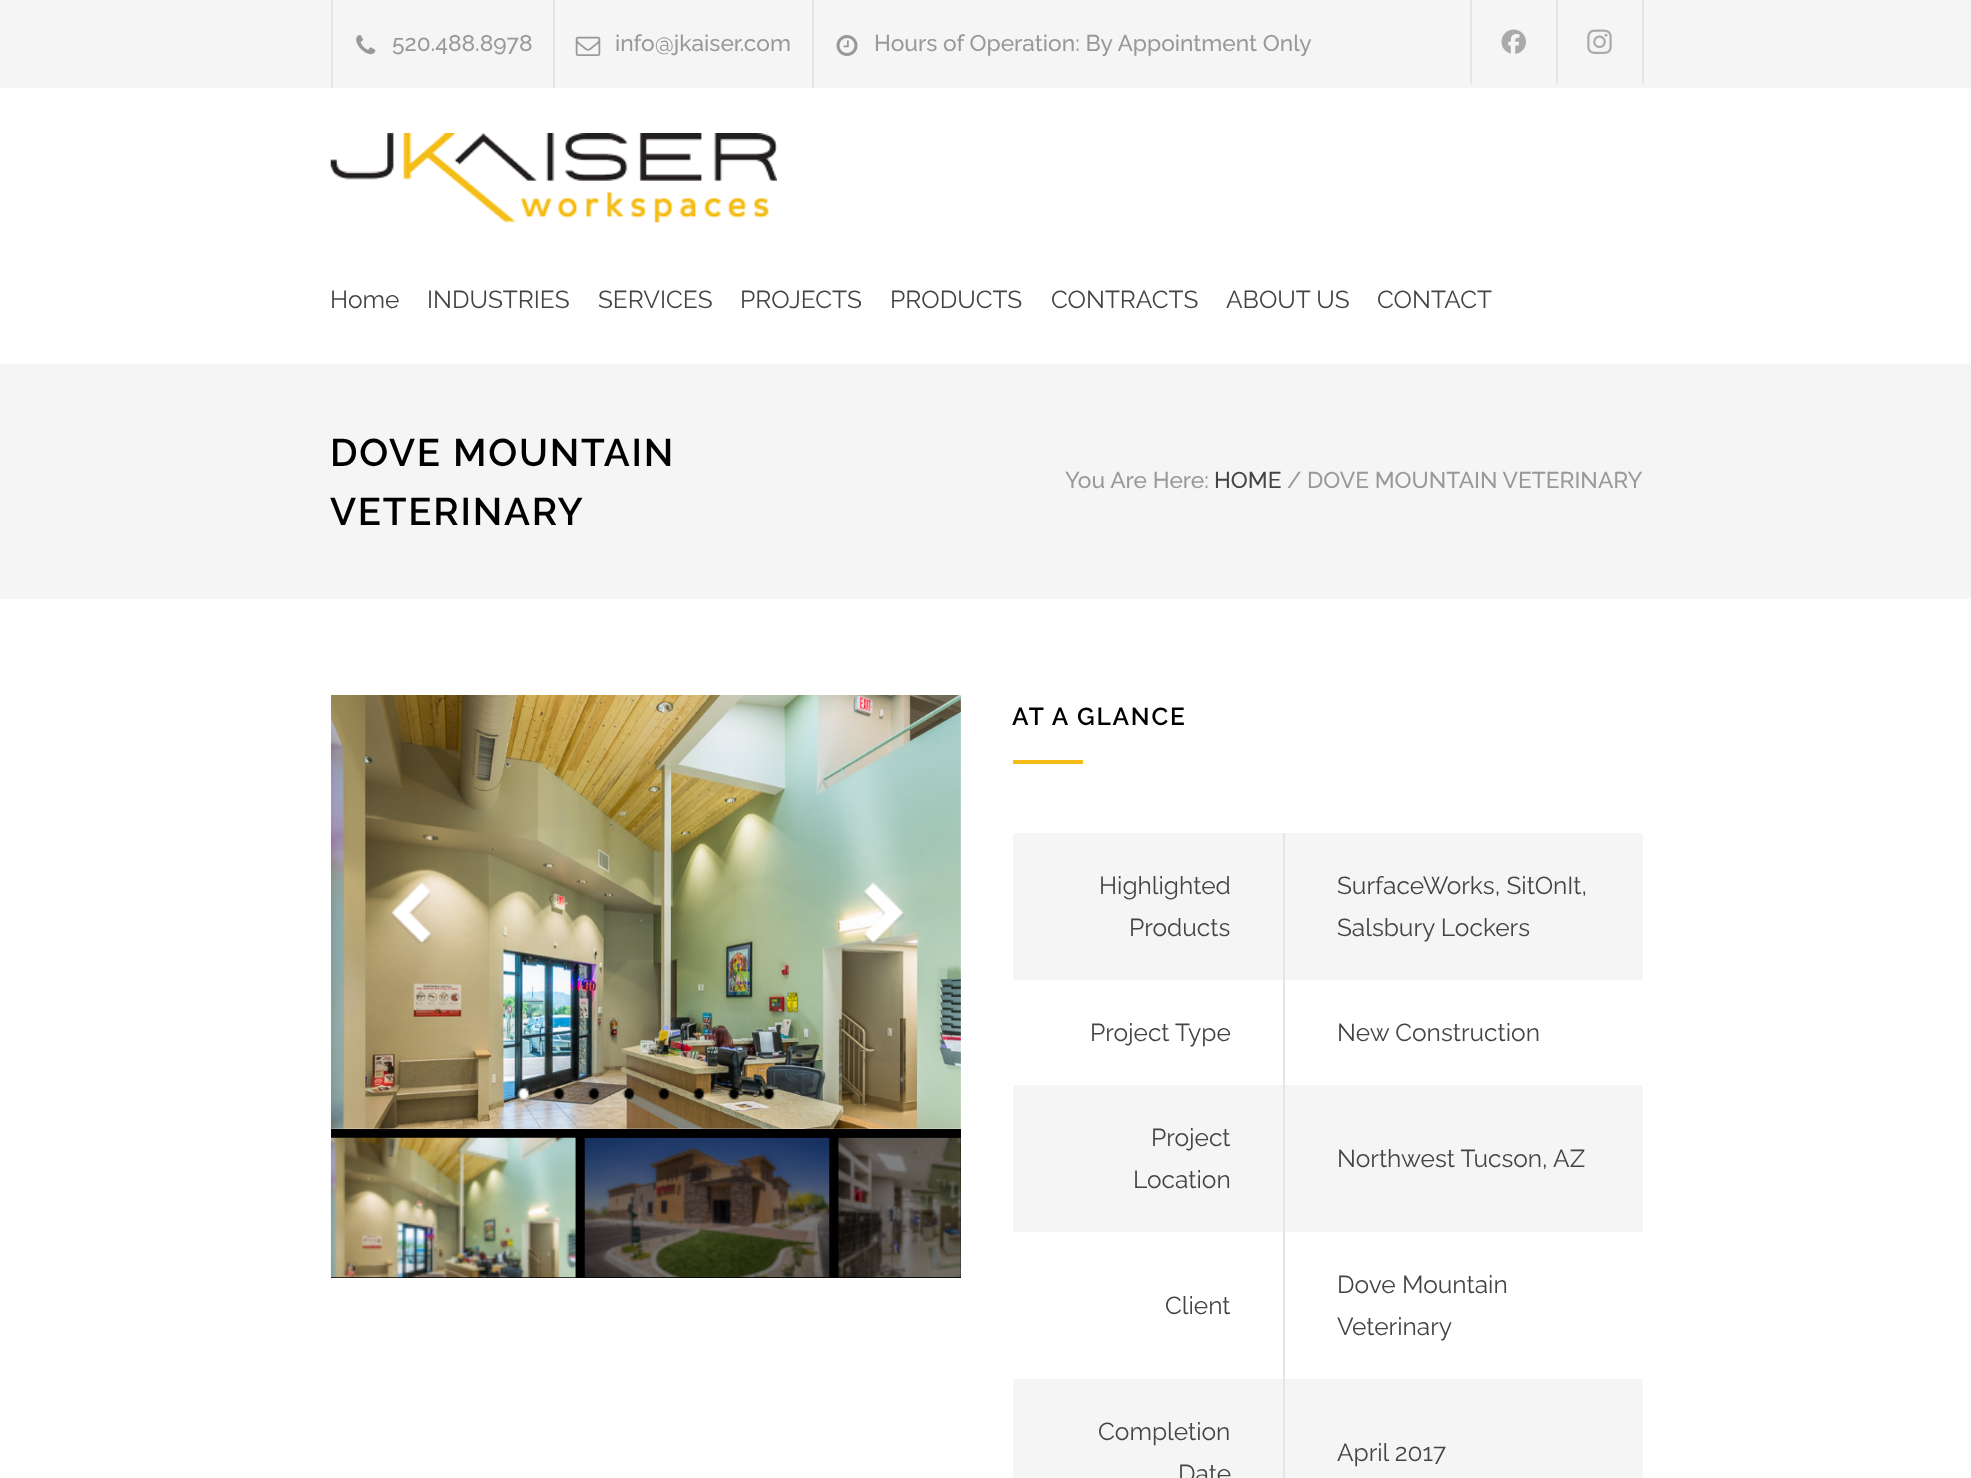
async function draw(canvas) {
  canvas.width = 1971
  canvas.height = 1478
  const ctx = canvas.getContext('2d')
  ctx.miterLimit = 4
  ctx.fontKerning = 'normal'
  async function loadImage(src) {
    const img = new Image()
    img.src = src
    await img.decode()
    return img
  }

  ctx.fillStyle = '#fff'
  ctx.fillRect(0, 0, 1971, 1478)
  ctx.fillStyle = '#f5f5f5'
  ctx.fillRect(0, 0, 1971, 88)
  ctx.fillStyle = '#e2e6e7'
  ctx.fillRect(553, 0, 2, 88)
  ctx.fillRect(331, 0, 2, 88)
  ctx.drawImage(await loadImage('image0.png'), 356, 35, 20, 20)
  ctx.font = '500 22.75px Raleway'
  ctx.fillStyle = '#999'
  ctx.fillText('520.488.8978', 392, 51)
  ctx.fillStyle = '#e2e6e7'
  ctx.fillRect(812, 0, 2, 88)
  ctx.drawImage(await loadImage('image1.png'), 575, 36, 26, 20)
  ctx.fillStyle = '#999'
  ctx.fillText('info@jkaiser.com', 615, 51)
  ctx.drawImage(await loadImage('image2.png'), 836, 35, 22, 21)
  ctx.fillText('Hours of Operation: By Appointment Only', 874, 51)
  ctx.fillStyle = '#e2e6e7'
  ctx.fillRect(1556, 0, 2, 84)
  ctx.fillRect(1470, 0, 2, 84)
  ctx.drawImage(await loadImage('image3.png'), 1501, 29, 25, 25)
  ctx.fillRect(1642, 0, 2, 84)
  ctx.drawImage(await loadImage('image4.png'), 1587, 29, 25, 25)
  ctx.drawImage(await loadImage('image5.png'), 330, 133, 447, 90)
  ctx.font = '24.5px Raleway'
  ctx.fillStyle = '#444'
  ctx.fillText('Home', 330, 308)
  ctx.fillText('INDUSTRIES', 427, 308)
  ctx.fillText('SERVICES', 598, 308)
  ctx.fillText('PROJECTS', 740, 308)
  ctx.fillText('PRODUCTS', 890, 308)
  ctx.fillText('CONTRACTS', 1051, 308)
  ctx.fillText('ABOUT US', 1226, 308)
  ctx.fillText('CONTACT', 1377, 308)
  ctx.fillStyle = '#f5f5f5'
  ctx.fillRect(0, 364, 1971, 235)
  ctx.letterSpacing = '1.75px'
  ctx.font = '600 38.5px Raleway'
  ctx.fillStyle = '#000'
  ctx.fillText('DOVE MOUNTAIN', 330, 466)
  ctx.fillText('VETERINARY', 330, 525)
  ctx.letterSpacing = '0px'
  ctx.font = '500 22.75px Raleway'
  ctx.fillStyle = '#999'
  ctx.fillText('You Are Here:', 1065, 488)
  ctx.fillStyle = '#444'
  ctx.fillText('HOME', 1214, 488)
  ctx.fillStyle = '#999'
  ctx.fillText('/', 1287, 488)
  ctx.fillText('DOVE MOUNTAIN VETERINARY', 1307, 488)
  ctx.fillStyle = '#000'
  ctx.fillRect(331, 1129, 630, 149)
  ctx.drawImage(await loadImage('image6.png'), 331, 695, 630, 434)
  ctx.drawImage(await loadImage('image7.png'), 391, 882, 40, 62)
  ctx.drawImage(await loadImage('image8.png'), 864, 882, 40, 62)
  ctx.drawImage(await loadImage('image9.png'), 514, 1085, 18, 18)
  ctx.drawImage(await loadImage('image10.png'), 552, 1088, 14, 12)
  ctx.drawImage(await loadImage('image11.png'), 587, 1088, 14, 12)
  ctx.drawImage(await loadImage('image12.png'), 622, 1088, 14, 12)
  ctx.drawImage(await loadImage('image13.png'), 657, 1088, 14, 12)
  ctx.drawImage(await loadImage('image14.png'), 692, 1088, 14, 12)
  ctx.drawImage(await loadImage('image15.png'), 727, 1088, 14, 12)
  ctx.drawImage(await loadImage('image16.png'), 762, 1088, 14, 12)
  ctx.drawImage(await loadImage('image17.png'), 330, 1137, 246, 141)
  ctx.drawImage(await loadImage('image18.png'), 584, 1137, 246, 141)
  ctx.drawImage(await loadImage('image19.png'), 838, 1137, 123, 141)
  ctx.letterSpacing = '1.75px'
  ctx.font = '600 24.5px Raleway'
  ctx.fillText('AT A GLANCE', 1012, 725)
  ctx.fillStyle = '#f4bc16'
  ctx.fillRect(1013, 760, 70, 4)
  ctx.fillStyle = '#f5f5f5'
  ctx.fillRect(1013, 833, 630, 147)
  ctx.letterSpacing = '0px'
  ctx.font = '24.5px Raleway'
  ctx.fillStyle = '#444'
  ctx.fillText('Highlighted', 1099, 894)
  ctx.fillText('Products', 1129, 936)
  ctx.fillText('SurfaceWorks, SitOnIt,', 1337, 894)
  ctx.fillText('Salsbury Lockers', 1337, 936)
  ctx.fillText('Project Type', 1090, 1041)
  ctx.fillText('New Construction', 1337, 1041)
  ctx.fillStyle = '#f5f5f5'
  ctx.fillRect(1013, 1085, 630, 147)
  ctx.fillStyle = '#444'
  ctx.fillText('Project', 1151, 1146)
  ctx.fillText('Location', 1133, 1188)
  ctx.fillText('Northwest Tucson, AZ', 1337, 1167)
  ctx.fillText('Client', 1165, 1314)
  ctx.fillText('Dove Mountain', 1337, 1293)
  ctx.fillText('Veterinary', 1337, 1335)
  ctx.fillStyle = '#f5f5f5'
  ctx.fillRect(1013, 1379, 630, 99)
  ctx.fillStyle = '#444'
  ctx.fillText('Completion', 1098, 1440)
  ctx.fillText('Date', 1178, 1482)
  ctx.fillStyle = '#e2e6e7'
  ctx.fillRect(1283, 833, 2, 645)
  ctx.fillStyle = '#444'
  ctx.fillText('April 2017', 1337, 1461)
}

draw(document.querySelector('canvas'))
